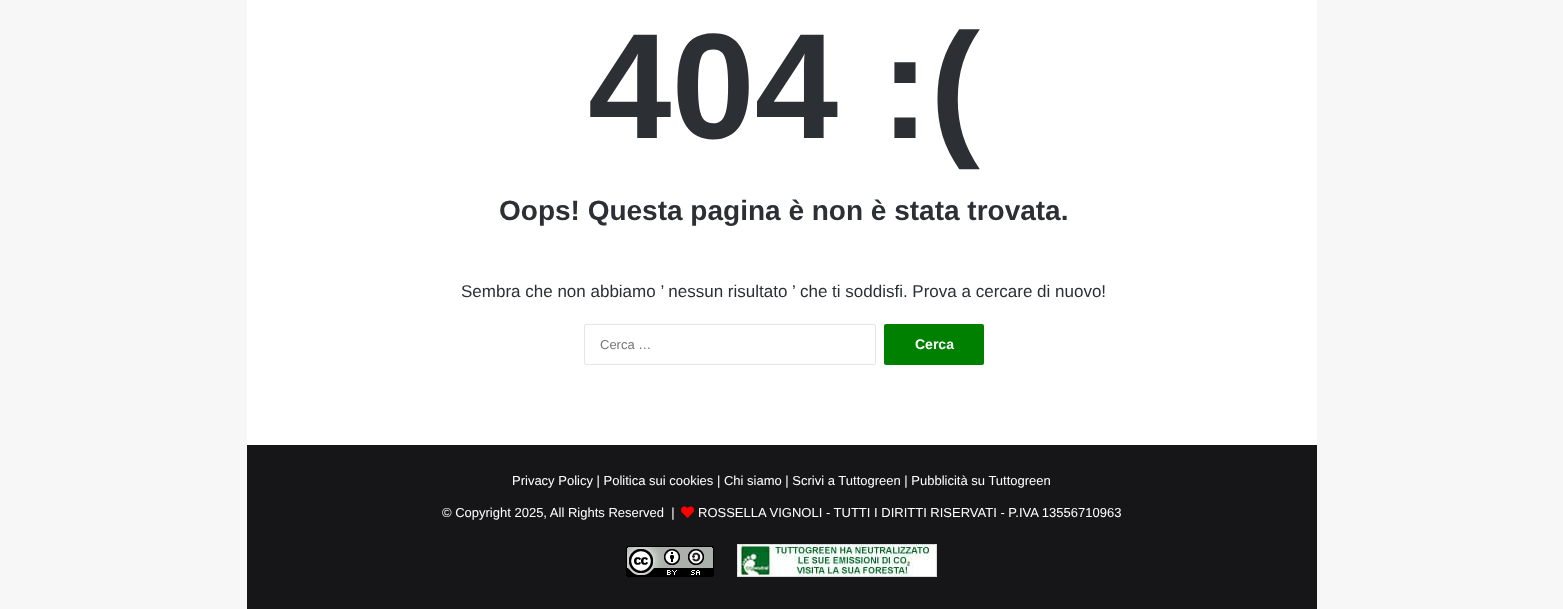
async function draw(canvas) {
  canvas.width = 1563
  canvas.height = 609
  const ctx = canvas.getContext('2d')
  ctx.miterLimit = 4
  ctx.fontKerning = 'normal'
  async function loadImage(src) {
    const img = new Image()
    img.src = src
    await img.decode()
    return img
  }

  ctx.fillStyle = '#f7f7f7'
  ctx.fillRect(0, 0, 1563, 609)
  ctx.fillStyle = '#fff'
  ctx.fillRect(247, 0, 1070, 445)
  ctx.font = 'bold 150px Liberation Sans'
  ctx.fillStyle = '#2c2f34'
  ctx.fillText('404 :(', 588, 138)
  ctx.font = 'bold 28px Liberation Sans'
  ctx.fillText('Oops! Questa pagina è non è stata trovata.', 499, 220)
  ctx.font = '17px Liberation Sans'
  ctx.fillText('Sembra che non abbiamo ’ nessun risultato ’ che ti soddisfi. Prova a cercare di nuovo!', 461, 297)
  ctx.beginPath()
  ctx.roundRect(584.5, 324.5, 291, 40, 1.5)
  ctx.strokeStyle = '#e6e6e6'
  ctx.stroke()
  ctx.font = '13px Liberation Sans'
  ctx.fillStyle = '#757575'
  ctx.fillText('Cerca …', 600, 349)
  ctx.fillStyle = '#008001'
  ctx.beginPath()
  ctx.roundRect(884, 324, 100, 41, 2)
  ctx.fill()
  ctx.font = 'bold 14px Liberation Sans'
  ctx.fillStyle = '#fff'
  ctx.fillText('Cerca', 915, 349)
  ctx.fillStyle = '#161619'
  ctx.fillRect(247, 445, 1070, 164)
  ctx.font = '13px Liberation Sans'
  ctx.fillStyle = '#fff'
  ctx.fillText('Privacy Policy | Politica sui cookies | Chi siamo | Scrivi a Tuttogreen | Pubblicità su Tuttogreen', 512, 485)
  ctx.fillText('© Copyright 2025, All Rights Reserved  |', 442, 517)
  ctx.drawImage(await loadImage('image0.png'), 681, 506, 13, 12)
  ctx.fillText('ROSSELLA VIGNOLI - TUTTI I DIRITTI RISERVATI - P.IVA 13556710963', 698, 517)
  ctx.drawImage(await loadImage('image1.png'), 626, 546, 88, 31)
  ctx.drawImage(await loadImage('image2.png'), 737, 544, 200, 33)
}

draw(document.querySelector('canvas'))
